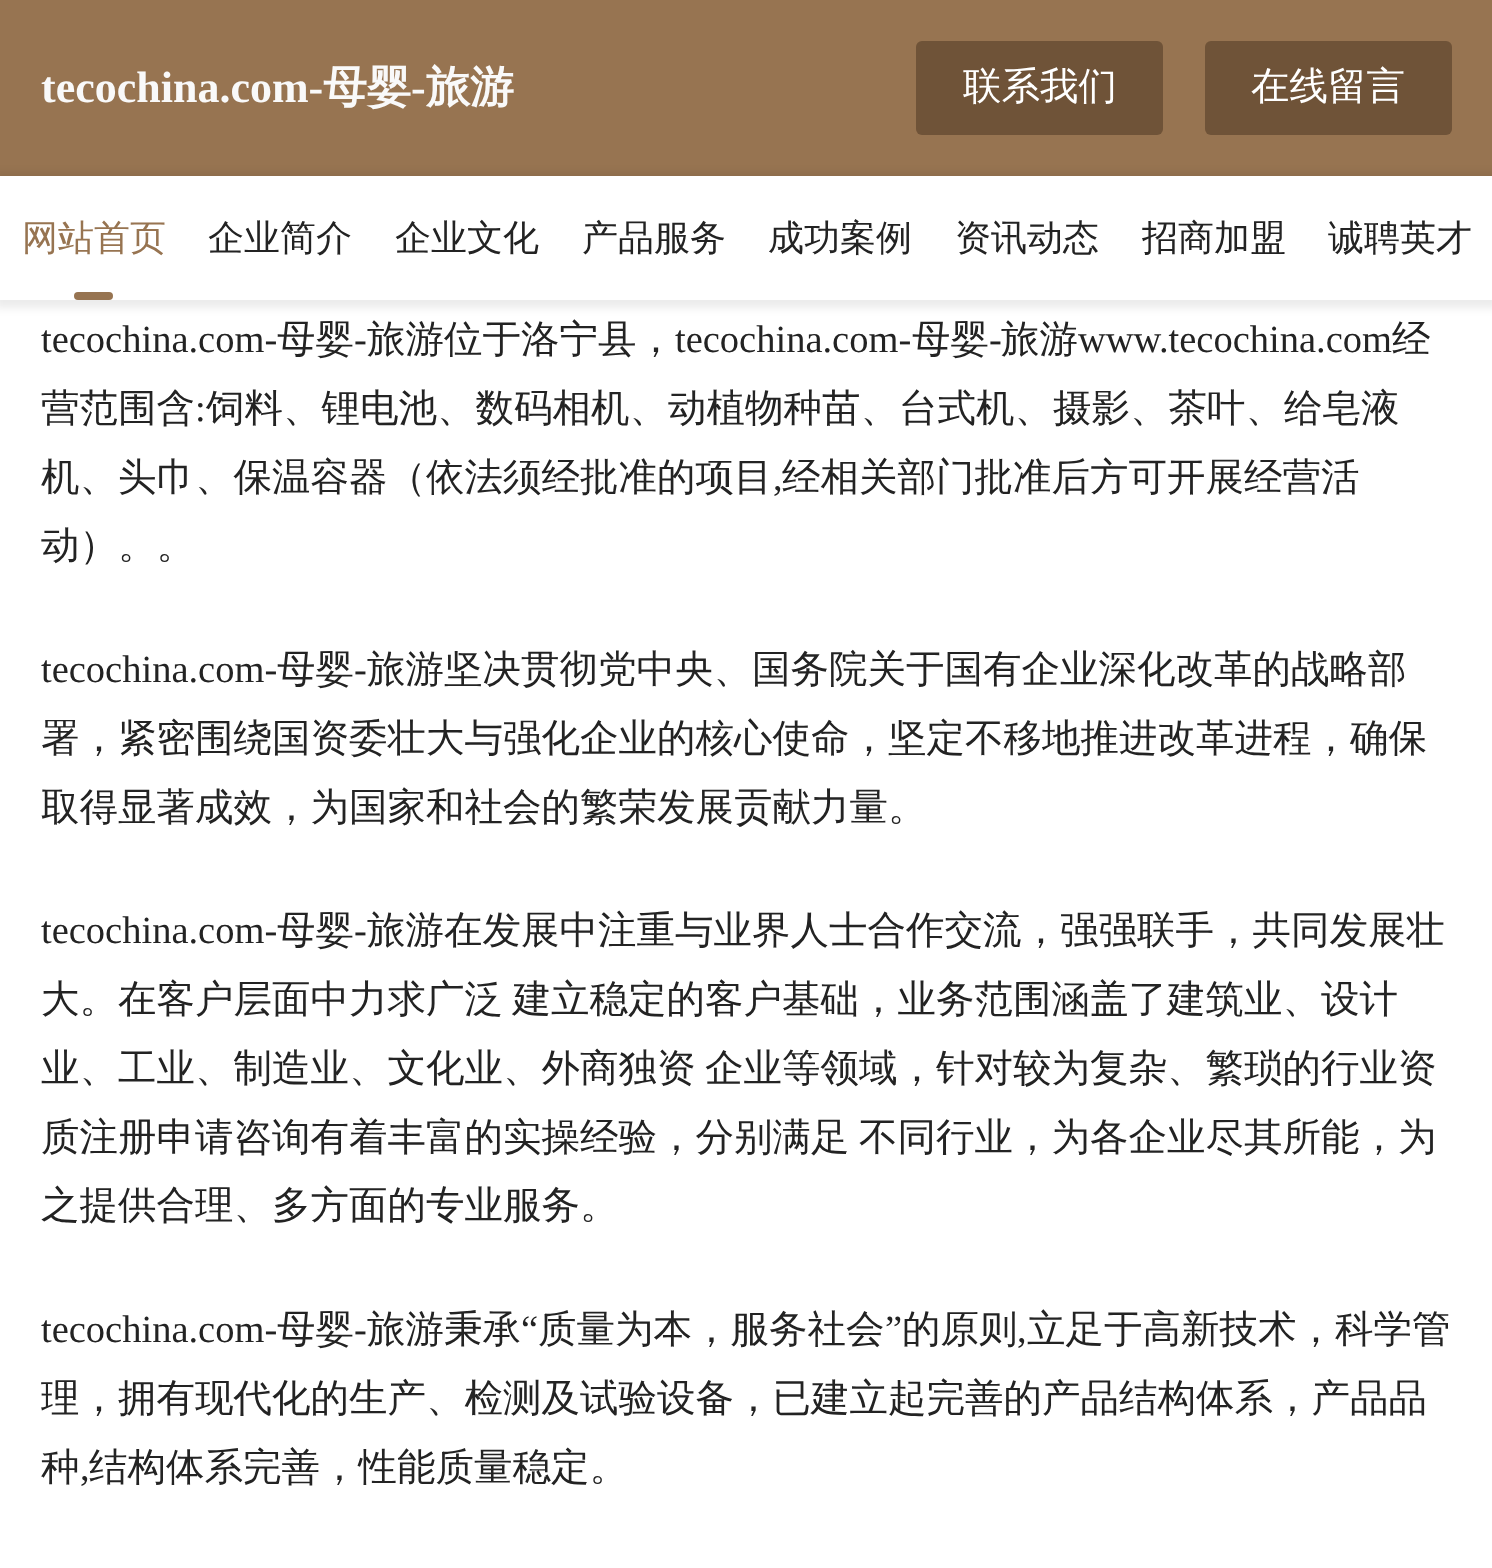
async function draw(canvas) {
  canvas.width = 1492
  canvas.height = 1568
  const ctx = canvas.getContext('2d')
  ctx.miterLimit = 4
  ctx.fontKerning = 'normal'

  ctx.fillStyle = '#fff'
  ctx.fillRect(0, 0, 1492, 1568)
  ctx.fillStyle = '#977451'
  ctx.fillRect(0, 0, 1492, 176)
  ctx.font = 'bold 44px Liberation Serif'
  ctx.fillStyle = '#f9f9f9'
  ctx.fillText('tecochina.com-', 41, 102)
  ctx.font = 'bold 44px WenQuanYi Zen Hei'
  ctx.fillText('母婴', 323, 102)
  ctx.font = 'bold 44px Liberation Serif'
  ctx.fillText('-', 411, 102)
  ctx.font = 'bold 44px WenQuanYi Zen Hei'
  ctx.fillText('旅游', 426, 102)
  ctx.fillStyle = '#6f5338'
  ctx.beginPath()
  ctx.roundRect(916, 41, 247, 94, 6)
  ctx.fill()
  ctx.font = '500 38.5px WenQuanYi Zen Hei'
  ctx.fillStyle = '#fff'
  ctx.fillText('联系我们', 963, 99)
  ctx.fillStyle = '#6f5338'
  ctx.beginPath()
  ctx.roundRect(1205, 41, 247, 94, 6)
  ctx.fill()
  ctx.fillStyle = '#fff'
  ctx.fillText('在线留言', 1251, 99)
  ctx.fillStyle = '#00000014'
  ctx.filter = 'blur(4px)'
  ctx.beginPath()
  ctx.rect(-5, 173, 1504, 135)
  ctx.fill()
  ctx.filter = 'none'
  ctx.fillStyle = '#fff'
  ctx.fillRect(0, 176, 1492, 124)
  ctx.font = '500 36px WenQuanYi Zen Hei'
  ctx.fillStyle = '#977451'
  ctx.fillText('网站首页', 22, 250)
  ctx.beginPath()
  ctx.roundRect(74, 292, 39, 8, 4)
  ctx.fill()
  ctx.fillStyle = '#232323'
  ctx.fillText('企业简介', 208, 250)
  ctx.fillText('企业文化', 395, 250)
  ctx.fillText('产品服务', 582, 250)
  ctx.fillText('成功案例', 768, 250)
  ctx.fillText('资讯动态', 955, 250)
  ctx.fillText('招商加盟', 1142, 250)
  ctx.fillText('诚聘英才', 1328, 250)
  ctx.font = '38.5px Liberation Serif'
  ctx.fillText('tecochina.com-', 41, 352)
  ctx.font = '500 38.5px WenQuanYi Zen Hei'
  ctx.fillText('母婴', 277, 352)
  ctx.font = '38.5px Liberation Serif'
  ctx.fillText('-', 354, 352)
  ctx.font = '500 38.5px WenQuanYi Zen Hei'
  ctx.fillText('旅游位于洛宁县，', 367, 352)
  ctx.font = '38.5px Liberation Serif'
  ctx.fillText('tecochina.com-', 675, 352)
  ctx.font = '500 38.5px WenQuanYi Zen Hei'
  ctx.fillText('母婴', 912, 352)
  ctx.font = '38.5px Liberation Serif'
  ctx.fillText('-', 989, 352)
  ctx.font = '500 38.5px WenQuanYi Zen Hei'
  ctx.fillText('旅游', 1001, 352)
  ctx.font = '38.5px Liberation Serif'
  ctx.fillText('www.tecochina.com', 1078, 352)
  ctx.font = '500 38.5px WenQuanYi Zen Hei'
  ctx.fillText('经', 1392, 352)
  ctx.fillText('营范围含', 41, 421)
  ctx.font = '38.5px Liberation Serif'
  ctx.fillText(':', 195, 421)
  ctx.font = '500 38.5px WenQuanYi Zen Hei'
  ctx.fillText('饲料、锂电池、数码相机、动植物种苗、台式机、摄影、茶叶、给皂液', 206, 421)
  ctx.fillText('机、头巾、保温容器（依法须经批准的项目', 41, 490)
  ctx.font = '38.5px Liberation Serif'
  ctx.fillText(',', 773, 490)
  ctx.font = '500 38.5px WenQuanYi Zen Hei'
  ctx.fillText('经相关部门批准后方可开展经营活', 782, 490)
  ctx.fillText('动）。。', 41, 558)
  ctx.font = '38.5px Liberation Serif'
  ctx.fillText('tecochina.com-', 41, 682)
  ctx.font = '500 38.5px WenQuanYi Zen Hei'
  ctx.fillText('母婴', 277, 682)
  ctx.font = '38.5px Liberation Serif'
  ctx.fillText('-', 354, 682)
  ctx.font = '500 38.5px WenQuanYi Zen Hei'
  ctx.fillText('旅游坚决贯彻党中央、国务院关于国有企业深化改革的战略部', 367, 682)
  ctx.fillText('署，紧密围绕国资委壮大与强化企业的核心使命，坚定不移地推进改革进程，确保', 41, 751)
  ctx.fillText('取得显著成效，为国家和社会的繁荣发展贡献力量。', 41, 820)
  ctx.font = '38.5px Liberation Serif'
  ctx.fillText('tecochina.com-', 41, 943)
  ctx.font = '500 38.5px WenQuanYi Zen Hei'
  ctx.fillText('母婴', 277, 943)
  ctx.font = '38.5px Liberation Serif'
  ctx.fillText('-', 354, 943)
  ctx.font = '500 38.5px WenQuanYi Zen Hei'
  ctx.fillText('旅游在发展中注重与业界人士合作交流，强强联手，共同发展壮', 367, 943)
  ctx.wordSpacing = '-2px'
  ctx.fillText('大。在客户层面中力求广泛 建立稳定的客户基础，业务范围涵盖了建筑业、设计', 41, 1012)
  ctx.fillText('业、工业、制造业、文化业、外商独资 企业等领域，针对较为复杂、繁琐的行业资', 41, 1081)
  ctx.fillText('质注册申请咨询有着丰富的实操经验，分别满足 不同行业，为各企业尽其所能，为', 41, 1150)
  ctx.wordSpacing = '0px'
  ctx.fillText('之提供合理、多方面的专业服务。', 41, 1218)
  ctx.font = '38.5px Liberation Serif'
  ctx.fillText('tecochina.com-', 41, 1342)
  ctx.font = '500 38.5px WenQuanYi Zen Hei'
  ctx.fillText('母婴', 277, 1342)
  ctx.fillText('旅游秉承', 367, 1342)
  ctx.font = '38.5px Liberation Serif'
  ctx.fillText('“', 521, 1342)
  ctx.font = '500 38.5px WenQuanYi Zen Hei'
  ctx.fillText('质量为本，服务社会', 538, 1342)
  ctx.font = '38.5px Liberation Serif'
  ctx.fillText('”', 885, 1342)
  ctx.font = '500 38.5px WenQuanYi Zen Hei'
  ctx.fillText('的原则', 902, 1342)
  ctx.fillText('立足于高新技术，科学管', 1027, 1342)
  ctx.font = '38.5px Liberation Serif'
  ctx.fillText('-', 354, 1342)
  ctx.fillText(',', 1017, 1342)
  ctx.font = '500 38.5px WenQuanYi Zen Hei'
  ctx.fillText('理，拥有现代化的生产、检测及试验设备，已建立起完善的产品结构体系，产品品', 41, 1411)
  ctx.fillText('种', 41, 1480)
  ctx.font = '38.5px Liberation Serif'
  ctx.fillText(',', 80, 1480)
  ctx.font = '500 38.5px WenQuanYi Zen Hei'
  ctx.fillText('结构体系完善，性能质量稳定。', 89, 1480)
}

draw(document.querySelector('canvas'))
